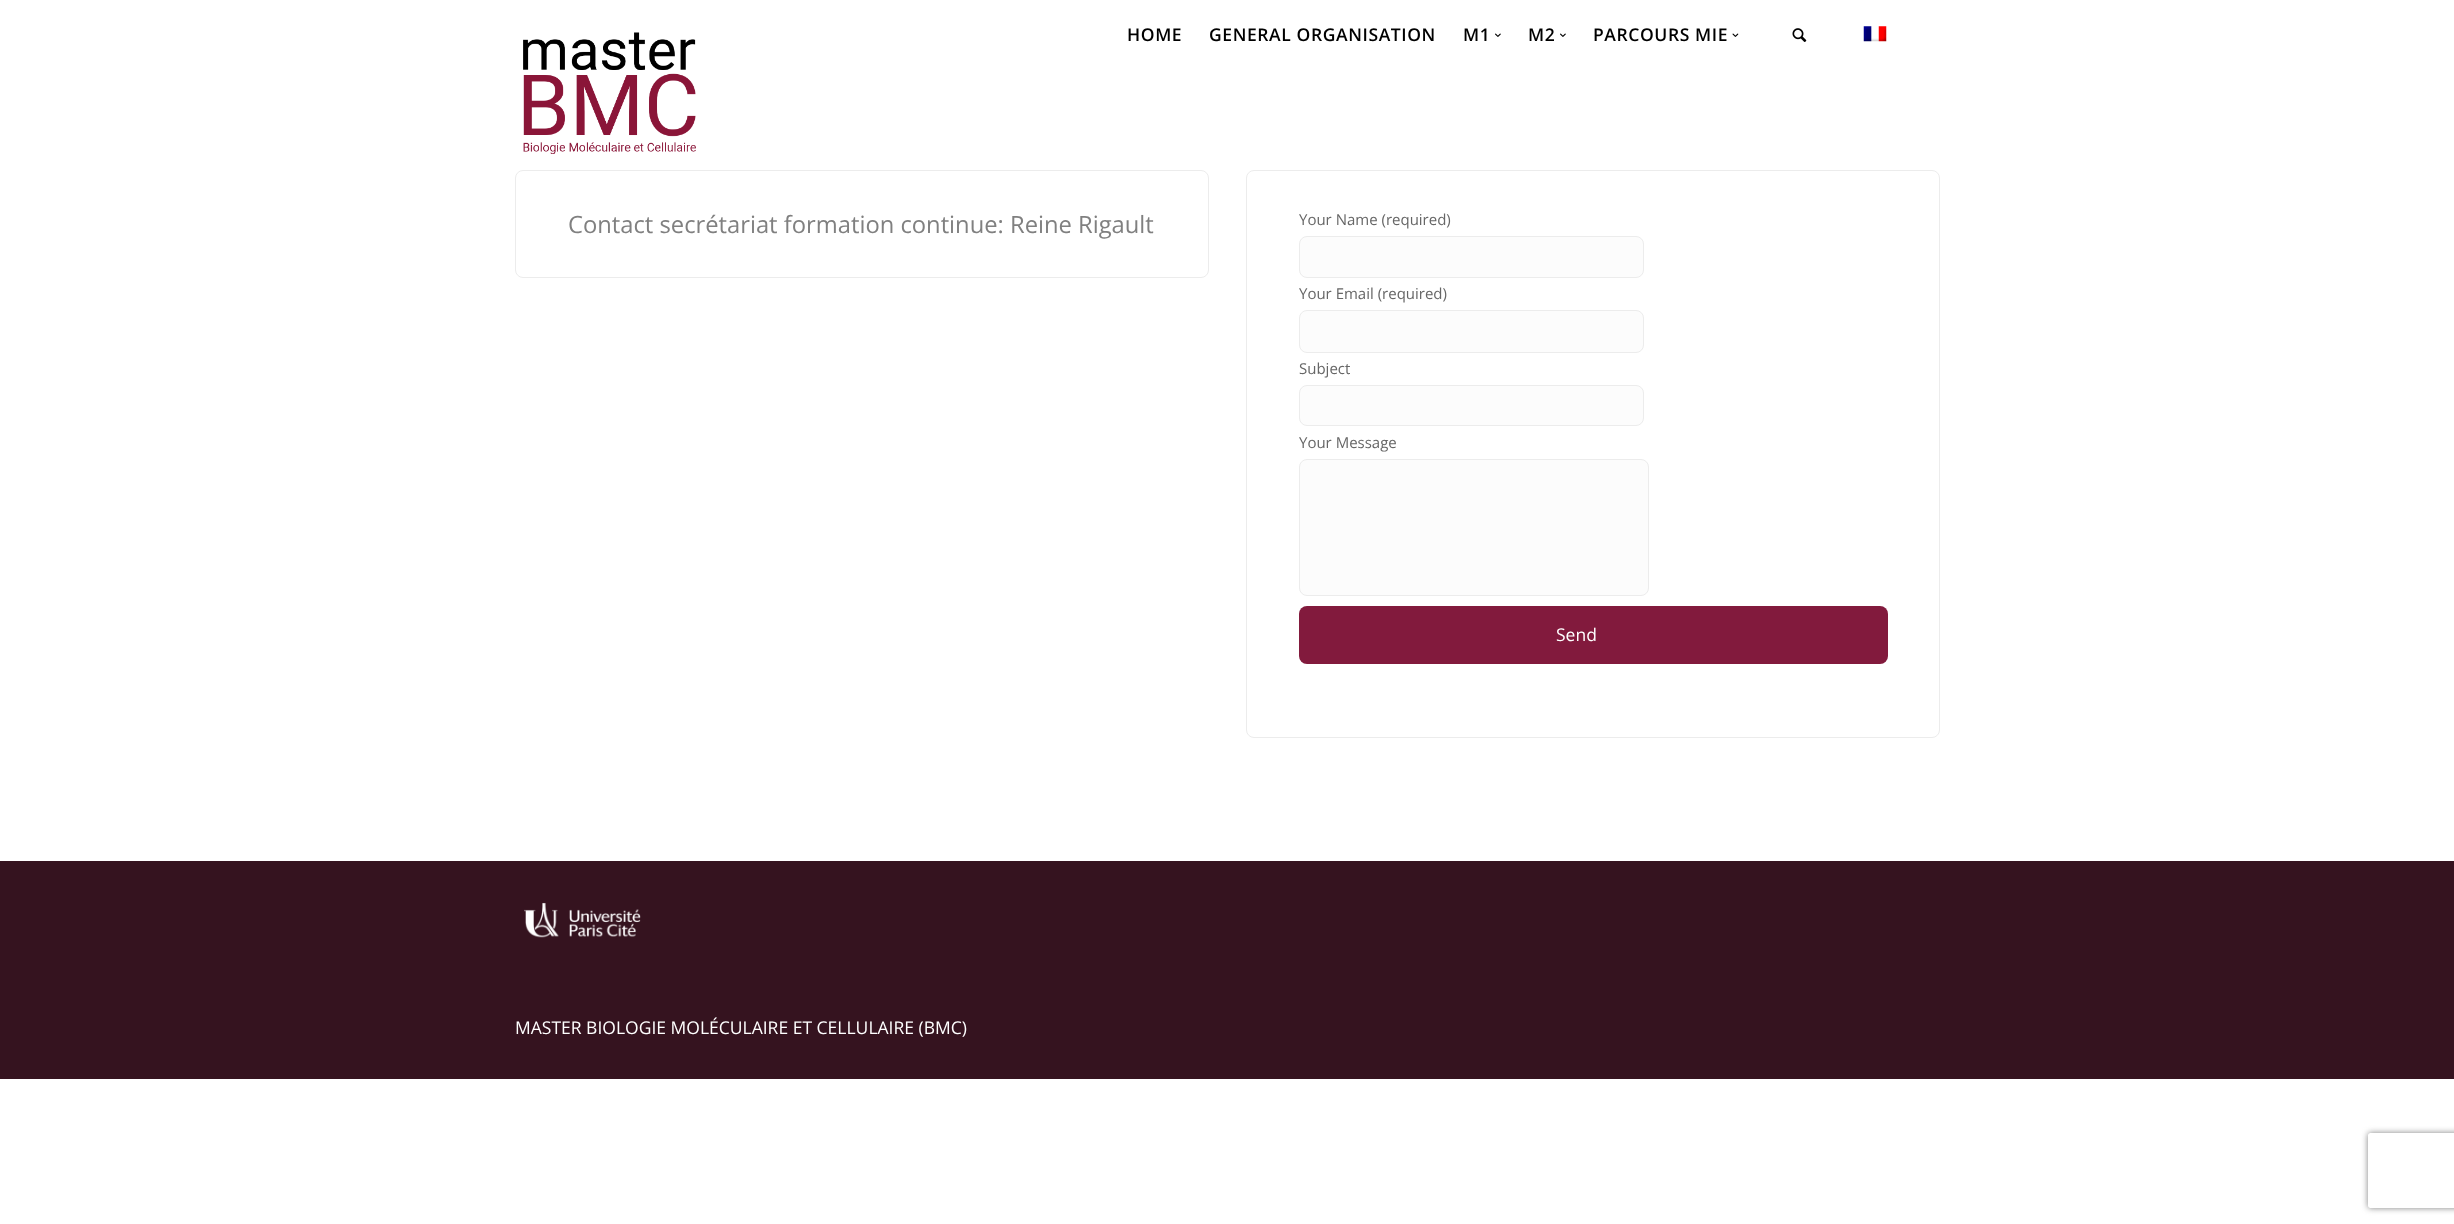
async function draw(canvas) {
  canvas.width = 2454
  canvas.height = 1224
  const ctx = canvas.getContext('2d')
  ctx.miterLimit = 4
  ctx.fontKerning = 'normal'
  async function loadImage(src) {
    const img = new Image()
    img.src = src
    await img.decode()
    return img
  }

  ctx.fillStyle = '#fff'
  ctx.fillRect(0, 0, 2454, 1224)
  ctx.drawImage(await loadImage('image0.png'), 523, 32, 173, 122)
  ctx.letterSpacing = '0.6px'
  ctx.font = '600 17.5px Open Sans'
  ctx.fillStyle = '#000'
  ctx.fillText('HOME', 1127, 41)
  ctx.fillText('GENERAL ORGANISATION', 1209, 41)
  ctx.fillText('M1', 1463, 41)
  ctx.drawImage(await loadImage('image1.png'), 1495, 33, 6, 4)
  ctx.fillText('M2', 1528, 41)
  ctx.drawImage(await loadImage('image1.png'), 1560, 33, 6, 4)
  ctx.fillText('PARCOURS MIE', 1593, 41)
  ctx.drawImage(await loadImage('image2.png'), 1732, 33, 7, 4)
  ctx.drawImage(await loadImage('image3.png'), 1792, 28, 15, 14)
  ctx.drawImage(await loadImage('image4.png'), 1863, 26, 24, 16)
  ctx.beginPath()
  ctx.roundRect(515.5, 170.5, 693, 107, 7.5)
  ctx.strokeStyle = '#ececec'
  ctx.stroke()
  ctx.letterSpacing = '0px'
  ctx.font = '23.75px Open Sans'
  ctx.fillStyle = '#808080'
  ctx.fillText('Contact secrétariat formation continue: Reine Rigault', 568, 233)
  ctx.beginPath()
  ctx.roundRect(1246.5, 170.5, 693, 567, 7.5)
  ctx.stroke()
  ctx.font = '15px Open Sans'
  ctx.fillStyle = '#666'
  ctx.fillText('Your Name (required)', 1299, 225)
  ctx.fillStyle = '#fcfcfc'
  ctx.beginPath()
  ctx.roundRect(1299.5, 236.5, 344, 41, 7.5)
  ctx.fill()
  ctx.stroke()
  ctx.fillStyle = '#666'
  ctx.fillText('Your Email (required)', 1299, 299)
  ctx.fillStyle = '#fcfcfc'
  ctx.beginPath()
  ctx.roundRect(1299.5, 310.5, 344, 42, 7.5)
  ctx.fill()
  ctx.stroke()
  ctx.fillStyle = '#666'
  ctx.fillText('Subject', 1299, 374)
  ctx.fillStyle = '#fcfcfc'
  ctx.beginPath()
  ctx.roundRect(1299.5, 385.5, 344, 40, 7.5)
  ctx.fill()
  ctx.stroke()
  ctx.fillStyle = '#666'
  ctx.fillText('Your Message', 1299, 448)
  ctx.fillStyle = '#fcfcfc'
  ctx.beginPath()
  ctx.roundRect(1299.5, 459.5, 349, 136, 7.5)
  ctx.fill()
  ctx.stroke()
  ctx.fillStyle = '#821a3d'
  ctx.beginPath()
  ctx.roundRect(1299, 606, 589, 58, 8)
  ctx.fill()
  ctx.font = '17.5px Open Sans'
  ctx.fillStyle = '#fff'
  ctx.fillText('Send', 1556, 641)
  ctx.fillStyle = '#35131f'
  ctx.fillRect(0, 861, 2454, 218)
  ctx.drawImage(await loadImage('image5.png'), 524, 902, 117, 36)
  ctx.fillStyle = '#fff'
  ctx.fillText('MASTER BIOLOGIE MOLÉCULAIRE ET CELLULAIRE (BMC)', 515, 1034)
  ctx.save()
  ctx.beginPath()
  ctx.moveTo(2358, 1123)
  ctx.lineTo(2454, 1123)
  ctx.lineTo(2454, 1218)
  ctx.lineTo(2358, 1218)
  ctx.closePath()
  ctx.moveTo(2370.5, 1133)
  ctx.lineTo(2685.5, 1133)
  ctx.bezierCurveTo(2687, 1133, 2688, 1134, 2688, 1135.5)
  ctx.lineTo(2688, 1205.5)
  ctx.bezierCurveTo(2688, 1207, 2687, 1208, 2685.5, 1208)
  ctx.lineTo(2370.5, 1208)
  ctx.bezierCurveTo(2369, 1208, 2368, 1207, 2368, 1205.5)
  ctx.lineTo(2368, 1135.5)
  ctx.bezierCurveTo(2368, 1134, 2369, 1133, 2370.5, 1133)
  ctx.closePath()
  ctx.clip('evenodd')
  ctx.fillStyle = '#808080'
  ctx.filter = 'blur(3px)'
  ctx.beginPath()
  ctx.roundRect(2368, 1133, 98, 75, 2.5)
  ctx.fill()
  ctx.filter = 'none'
  ctx.restore()
}

draw(document.querySelector('canvas'))
